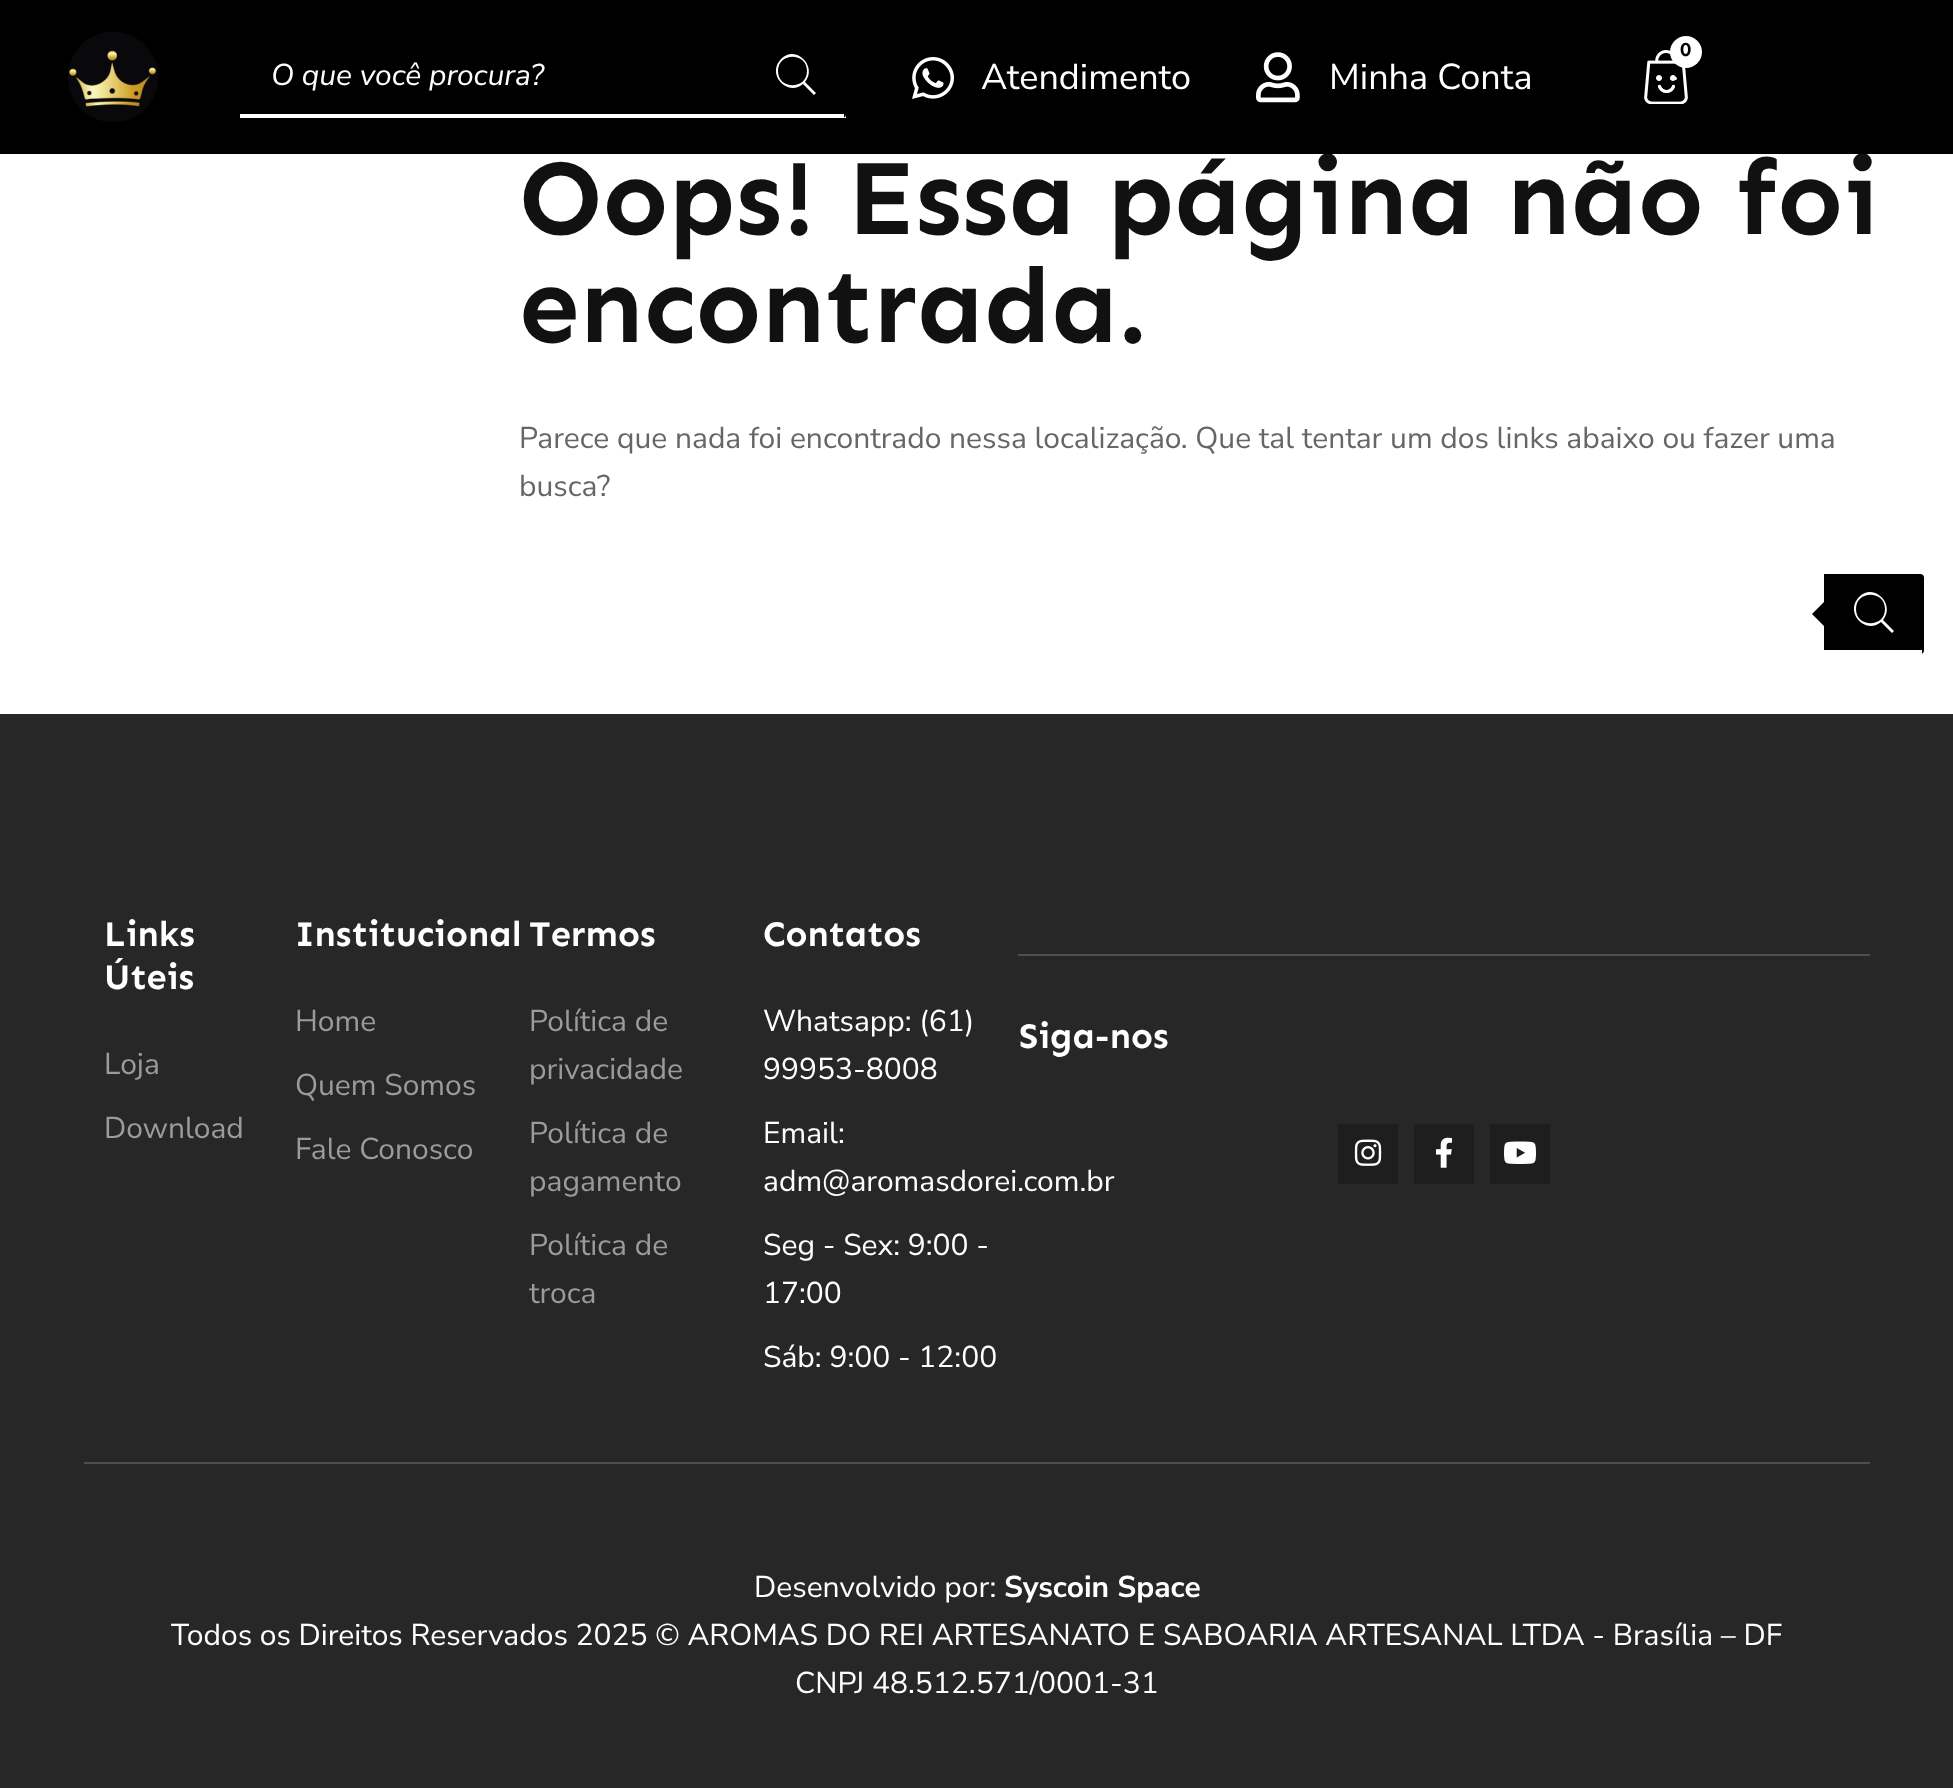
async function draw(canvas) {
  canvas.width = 1953
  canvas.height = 1788
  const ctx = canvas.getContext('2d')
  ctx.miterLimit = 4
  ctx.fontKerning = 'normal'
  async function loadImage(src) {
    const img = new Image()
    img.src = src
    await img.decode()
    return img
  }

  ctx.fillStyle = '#fff'
  ctx.fillRect(0, 0, 1953, 1788)
  ctx.font = 'bold 108px Sen'
  ctx.fillStyle = '#111'
  ctx.fillText('Oops! Essa página não foi', 519, 234)
  ctx.fillStyle = '#000'
  ctx.fillRect(0, 0, 1953, 154)
  ctx.drawImage(await loadImage('image0.png'), 68, 32, 90, 90)
  ctx.drawImage(await loadImage('image1.png'), 1644, 50, 44, 54)
  ctx.fillStyle = '#fff'
  ctx.beginPath()
  ctx.arc(1686, 52, 16, 0, 2 * Math.PI)
  ctx.fill()
  ctx.letterSpacing = '2px'
  ctx.font = 'bold 20px Sen'
  ctx.fillStyle = '#000'
  ctx.fillText('0', 1680, 56)
  ctx.fillStyle = '#fff'
  ctx.fillRect(240, 114, 606, 4)
  ctx.letterSpacing = '0px'
  ctx.font = 'italic 30px Nunito Sans'
  ctx.fillText('O que você procura?', 271, 85)
  ctx.fillStyle = '#000'
  ctx.beginPath()
  ctx.roundRect(746, 38, 100, 80, [0, 4, 4, 0])
  ctx.fill()
  ctx.fillStyle = '#fff'
  ctx.fillRect(746, 114, 98, 4)
  ctx.beginPath()
  ctx.moveTo(816, 93)
  ctx.lineTo(805, 82)
  ctx.bezierCurveTo(818, 67, 796, 44, 781, 59)
  ctx.bezierCurveTo(766, 75, 788, 97, 803, 84)
  ctx.lineTo(814, 95)
  ctx.closePath()
  ctx.moveTo(778, 71)
  ctx.bezierCurveTo(778, 52, 807, 52, 807, 71)
  ctx.bezierCurveTo(807, 90, 778, 90, 778, 71)
  ctx.closePath()
  ctx.fill()
  ctx.drawImage(await loadImage('image2.png'), 912, 57, 42, 42)
  ctx.font = '36px Nunito Sans'
  ctx.fillText('Atendimento', 981, 89)
  ctx.drawImage(await loadImage('image3.png'), 1256, 52, 44, 51)
  ctx.fillText('Minha Conta', 1329, 89)
  ctx.font = 'bold 108px Sen'
  ctx.fillStyle = '#111'
  ctx.fillText('encontrada.', 519, 342)
  ctx.font = '30px Nunito Sans'
  ctx.fillStyle = '#666'
  ctx.fillText('Parece que nada foi encontrado nessa localização. Que tal tentar um dos links abaixo ou fazer uma', 519, 448)
  ctx.fillText('busca?', 519, 496)
  ctx.fillStyle = '#000'
  ctx.beginPath()
  ctx.roundRect(1824, 574, 100, 80, [0, 4, 4, 0])
  ctx.fill()
  ctx.fillStyle = '#fff'
  ctx.fillRect(1824, 650, 98, 4)
  ctx.fillStyle = '#000'
  ctx.beginPath()
  ctx.moveTo(1828, 598)
  ctx.lineTo(1828, 630)
  ctx.lineTo(1812, 614)
  ctx.closePath()
  ctx.fill()
  ctx.fillStyle = '#fff'
  ctx.beginPath()
  ctx.moveTo(1894, 631)
  ctx.lineTo(1883, 620)
  ctx.bezierCurveTo(1896, 605, 1874, 582, 1859, 597)
  ctx.bezierCurveTo(1844, 613, 1866, 635, 1881, 622)
  ctx.lineTo(1892, 633)
  ctx.closePath()
  ctx.moveTo(1856, 609)
  ctx.bezierCurveTo(1856, 590, 1885, 590, 1885, 609)
  ctx.bezierCurveTo(1885, 628, 1856, 628, 1856, 609)
  ctx.closePath()
  ctx.fill()
  ctx.fillStyle = '#272727'
  ctx.fillRect(0, 714, 1953, 1074)
  ctx.fillStyle = '#554b47'
  ctx.fillRect(84, 1462, 1786, 2)
  ctx.font = 'bold 36px Sen'
  ctx.fillStyle = '#fff'
  ctx.fillText('Links', 104, 946)
  ctx.fillText('Úteis', 104, 989)
  ctx.font = '30px Nunito Sans'
  ctx.fillStyle = '#9b9b9b'
  ctx.fillText('Loja', 104, 1074)
  ctx.fillText('Download', 104, 1138)
  ctx.font = 'bold 36px Sen'
  ctx.fillStyle = '#fff'
  ctx.fillText('Institucional', 295, 946)
  ctx.font = '30px Nunito Sans'
  ctx.fillStyle = '#9b9b9b'
  ctx.fillText('Home', 295, 1031)
  ctx.fillText('Quem Somos', 295, 1095)
  ctx.fillText('Fale Conosco', 295, 1159)
  ctx.font = 'bold 36px Sen'
  ctx.fillStyle = '#fff'
  ctx.fillText('Termos', 529, 946)
  ctx.font = '30px Nunito Sans'
  ctx.fillStyle = '#9b9b9b'
  ctx.fillText('Política de', 529, 1031)
  ctx.fillText('privacidade', 529, 1079)
  ctx.fillText('Política de', 529, 1143)
  ctx.fillText('pagamento', 529, 1191)
  ctx.fillText('Política de', 529, 1255)
  ctx.fillText('troca', 529, 1303)
  ctx.font = 'bold 36px Sen'
  ctx.fillStyle = '#fff'
  ctx.fillText('Contatos', 763, 946)
  ctx.font = '30px Nunito Sans'
  ctx.fillText('Whatsapp: (61)', 763, 1031)
  ctx.fillText('99953-8008', 763, 1079)
  ctx.fillText('Email:', 763, 1143)
  ctx.fillText('adm@aromasdorei.com.br', 763, 1191)
  ctx.fillText('Seg - Sex: 9:00 -', 763, 1255)
  ctx.fillText('17:00', 763, 1303)
  ctx.fillText('Sáb: 9:00 - 12:00', 763, 1367)
  ctx.fillStyle = '#554b47'
  ctx.fillRect(1018, 954, 852, 2)
  ctx.font = 'bold 36px Sen'
  ctx.fillStyle = '#fff'
  ctx.fillText('Siga-nos', 1019, 1048)
  ctx.fillStyle = '#1e1e1e'
  ctx.fillRect(1338, 1124, 60, 60)
  ctx.drawImage(await loadImage('image4.png'), 1354, 1139, 28, 27)
  ctx.fillRect(1414, 1124, 60, 60)
  ctx.drawImage(await loadImage('image5.png'), 1435, 1137, 18, 31)
  ctx.fillRect(1490, 1124, 60, 60)
  ctx.drawImage(await loadImage('image6.png'), 1504, 1141, 32, 23)
  ctx.font = '30px Nunito Sans'
  ctx.fillStyle = '#fff'
  ctx.fillText('Desenvolvido por:', 754, 1597)
  ctx.font = 'bold 30px Nunito Sans'
  ctx.fillText('Syscoin Space', 1004, 1597)
  ctx.font = '30px Nunito Sans'
  ctx.fillText('Todos os Direitos Reservados 2025 © AROMAS DO REI ARTESANATO E SABOARIA ARTESANAL LTDA - Brasília – DF', 171, 1645)
  ctx.fillText('CNPJ 48.512.571/0001-31', 795, 1693)
}

draw(document.querySelector('canvas'))
